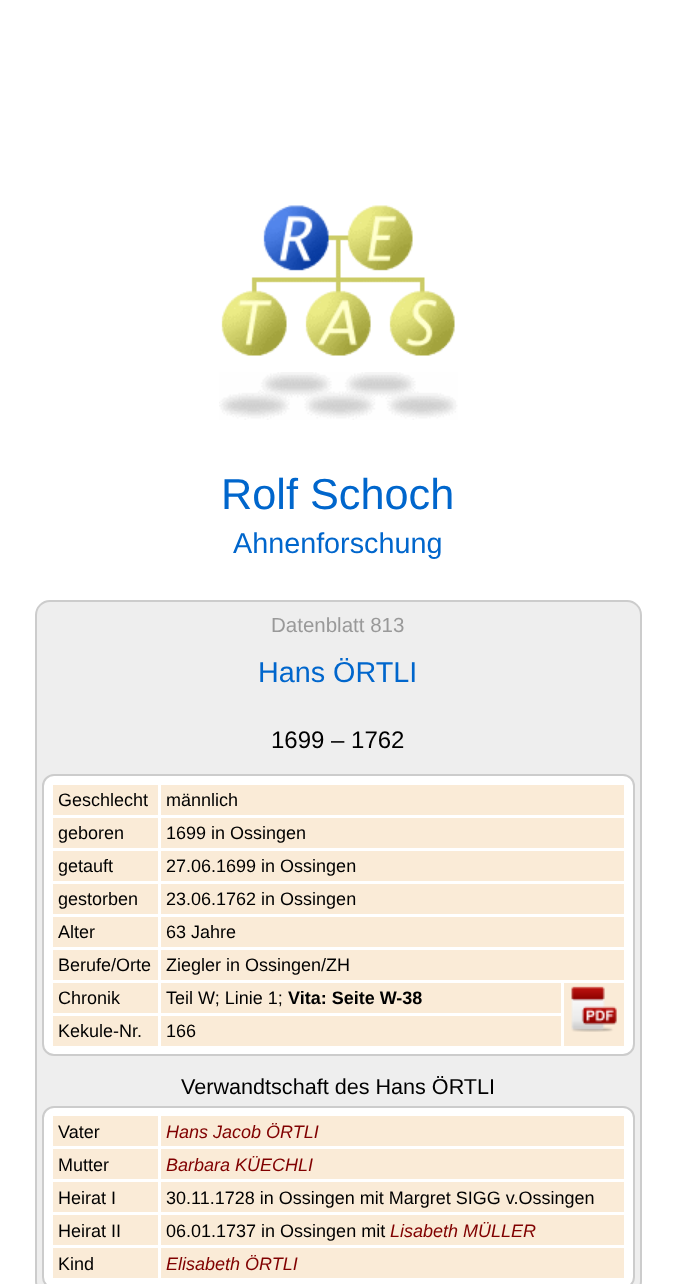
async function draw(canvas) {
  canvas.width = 674
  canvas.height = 1284
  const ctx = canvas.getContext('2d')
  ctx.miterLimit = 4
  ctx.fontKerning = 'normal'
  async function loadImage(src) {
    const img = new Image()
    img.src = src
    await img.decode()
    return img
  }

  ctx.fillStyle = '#fff'
  ctx.fillRect(0, 0, 674, 1284)
  ctx.drawImage(await loadImage('image0.png'), 221, 205, 234, 151)
  ctx.drawImage(await loadImage('image1.png'), 219, 372, 239, 48)
  ctx.font = '43.25px Liberation Sans'
  ctx.fillStyle = '#06c'
  ctx.fillText('Rolf Schoch', 221, 509)
  ctx.font = '28.75px Liberation Sans'
  ctx.fillText('Ahnenforschung', 233, 553)
  ctx.fillStyle = '#eee'
  ctx.beginPath()
  ctx.roundRect(36, 601, 605, 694, 14)
  ctx.fill()
  ctx.strokeStyle = '#ccc'
  ctx.lineWidth = 2
  ctx.stroke()
  ctx.font = '20.5px Liberation Sans'
  ctx.fillStyle = '#999'
  ctx.fillText('Datenblatt 813', 271, 632)
  ctx.font = '28.75px Liberation Sans'
  ctx.fillStyle = '#06c'
  ctx.fillText('Hans ÖRTLI', 258, 682)
  ctx.font = '24px Liberation Sans'
  ctx.fillStyle = '#000'
  ctx.fillText('1699 – 1762', 271, 748)
  ctx.fillStyle = '#fff'
  ctx.beginPath()
  ctx.roundRect(43, 775, 591, 280, 11)
  ctx.fill()
  ctx.stroke()
  ctx.fillStyle = '#faebd7'
  ctx.fillRect(53, 785, 105, 30)
  ctx.font = '18px Liberation Sans'
  ctx.fillStyle = '#000'
  ctx.fillText('Geschlecht', 58, 806)
  ctx.fillStyle = '#faebd7'
  ctx.fillRect(161, 785, 463, 30)
  ctx.fillStyle = '#000'
  ctx.fillText('männlich', 166, 806)
  ctx.fillStyle = '#faebd7'
  ctx.fillRect(53, 818, 105, 30)
  ctx.fillStyle = '#000'
  ctx.fillText('geboren', 58, 839)
  ctx.fillStyle = '#faebd7'
  ctx.fillRect(161, 818, 463, 30)
  ctx.fillStyle = '#000'
  ctx.fillText('1699 in Ossingen', 166, 839)
  ctx.fillStyle = '#faebd7'
  ctx.fillRect(53, 851, 105, 30)
  ctx.fillStyle = '#000'
  ctx.fillText('getauft', 58, 872)
  ctx.fillStyle = '#faebd7'
  ctx.fillRect(161, 851, 463, 30)
  ctx.fillStyle = '#000'
  ctx.fillText('27.06.1699 in Ossingen', 166, 872)
  ctx.fillStyle = '#faebd7'
  ctx.fillRect(53, 884, 105, 30)
  ctx.fillStyle = '#000'
  ctx.fillText('gestorben', 58, 905)
  ctx.fillStyle = '#faebd7'
  ctx.fillRect(161, 884, 463, 30)
  ctx.fillStyle = '#000'
  ctx.fillText('23.06.1762 in Ossingen', 166, 905)
  ctx.fillStyle = '#faebd7'
  ctx.fillRect(53, 917, 105, 30)
  ctx.fillStyle = '#000'
  ctx.fillText('Alter', 58, 938)
  ctx.fillStyle = '#faebd7'
  ctx.fillRect(161, 917, 463, 30)
  ctx.fillStyle = '#000'
  ctx.fillText('63 Jahre', 166, 938)
  ctx.fillStyle = '#faebd7'
  ctx.fillRect(53, 950, 105, 30)
  ctx.fillStyle = '#000'
  ctx.fillText('Berufe/Orte', 58, 971)
  ctx.fillStyle = '#faebd7'
  ctx.fillRect(161, 950, 463, 30)
  ctx.fillStyle = '#000'
  ctx.fillText('Ziegler in Ossingen/ZH', 166, 971)
  ctx.fillStyle = '#faebd7'
  ctx.fillRect(53, 983, 105, 30)
  ctx.fillStyle = '#000'
  ctx.fillText('Chronik', 58, 1004)
  ctx.fillStyle = '#faebd7'
  ctx.fillRect(161, 983, 400, 30)
  ctx.fillStyle = '#000'
  ctx.fillText('Teil W; Linie 1;', 166, 1004)
  ctx.font = 'bold 18px Liberation Sans'
  ctx.fillText('Vita: Seite W-38', 288, 1004)
  ctx.fillStyle = '#faebd7'
  ctx.fillRect(564, 983, 60, 63)
  ctx.drawImage(await loadImage('image2.png'), 571, 986, 46, 46)
  ctx.fillRect(53, 1016, 105, 30)
  ctx.font = '18px Liberation Sans'
  ctx.fillStyle = '#000'
  ctx.fillText('Kekule-Nr.', 58, 1037)
  ctx.fillStyle = '#faebd7'
  ctx.fillRect(161, 1016, 400, 30)
  ctx.fillStyle = '#000'
  ctx.fillText('166', 166, 1037)
  ctx.font = '21.6px Liberation Sans'
  ctx.fillText('Verwandtschaft des Hans ÖRTLI', 181, 1094)
  ctx.fillStyle = '#fff'
  ctx.beginPath()
  ctx.roundRect(43, 1107, 591, 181, 11)
  ctx.fill()
  ctx.stroke()
  ctx.fillStyle = '#faebd7'
  ctx.fillRect(53, 1116, 105, 30)
  ctx.font = '18px Liberation Sans'
  ctx.fillStyle = '#000'
  ctx.fillText('Vater', 58, 1138)
  ctx.fillStyle = '#faebd7'
  ctx.fillRect(161, 1116, 463, 30)
  ctx.font = 'italic 18px Liberation Sans'
  ctx.fillStyle = '#800000'
  ctx.fillText('Hans Jacob ÖRTLI', 166, 1138)
  ctx.fillStyle = '#faebd7'
  ctx.fillRect(53, 1149, 105, 30)
  ctx.font = '18px Liberation Sans'
  ctx.fillStyle = '#000'
  ctx.fillText('Mutter', 58, 1171)
  ctx.fillStyle = '#faebd7'
  ctx.fillRect(161, 1149, 463, 30)
  ctx.font = 'italic 18px Liberation Sans'
  ctx.fillStyle = '#800000'
  ctx.fillText('Barbara KÜECHLI', 166, 1171)
  ctx.fillStyle = '#faebd7'
  ctx.fillRect(53, 1182, 105, 30)
  ctx.font = '18px Liberation Sans'
  ctx.fillStyle = '#000'
  ctx.fillText('Heirat I', 58, 1204)
  ctx.fillStyle = '#faebd7'
  ctx.fillRect(161, 1182, 463, 30)
  ctx.fillStyle = '#000'
  ctx.fillText('30.11.1728 in Ossingen mit Margret SIGG v.Ossingen', 166, 1204)
  ctx.fillStyle = '#faebd7'
  ctx.fillRect(53, 1215, 105, 30)
  ctx.fillStyle = '#000'
  ctx.fillText('Heirat II', 58, 1237)
  ctx.fillStyle = '#faebd7'
  ctx.fillRect(161, 1215, 463, 30)
  ctx.fillStyle = '#000'
  ctx.fillText('06.01.1737 in Ossingen mit', 166, 1237)
  ctx.font = 'italic 18px Liberation Sans'
  ctx.fillStyle = '#800000'
  ctx.fillText('Lisabeth MÜLLER', 390, 1237)
  ctx.fillStyle = '#faebd7'
  ctx.fillRect(53, 1248, 105, 30)
  ctx.font = '18px Liberation Sans'
  ctx.fillStyle = '#000'
  ctx.fillText('Kind', 58, 1270)
  ctx.fillStyle = '#faebd7'
  ctx.fillRect(161, 1248, 463, 30)
  ctx.font = 'italic 18px Liberation Sans'
  ctx.fillStyle = '#800000'
  ctx.fillText('Elisabeth ÖRTLI', 166, 1270)
}

draw(document.querySelector('canvas'))
